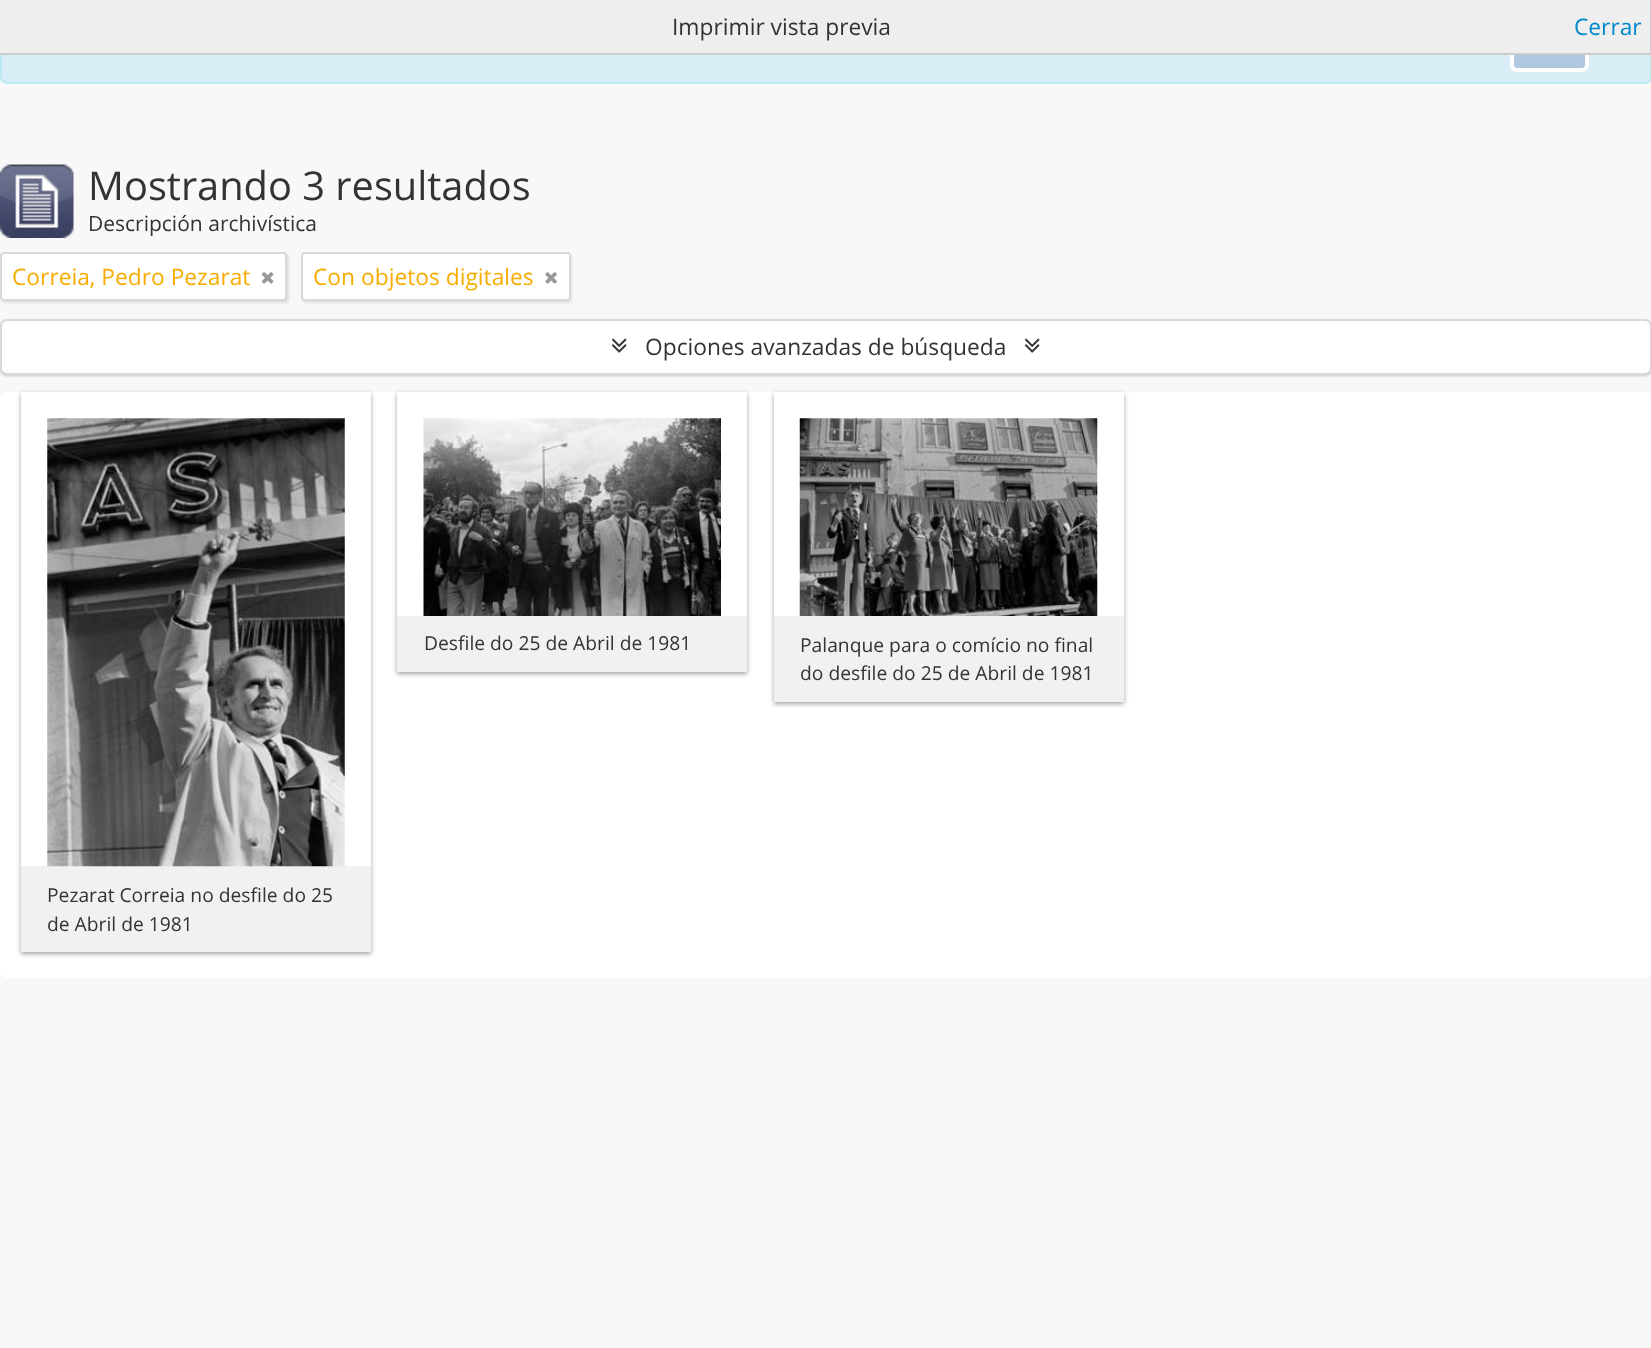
async function draw(canvas) {
  canvas.width = 1651
  canvas.height = 1348
  const ctx = canvas.getContext('2d')
  ctx.miterLimit = 4
  ctx.fontKerning = 'normal'
  async function loadImage(src) {
    const img = new Image()
    img.src = src
    await img.decode()
    return img
  }

  ctx.fillStyle = '#f8f8f8'
  ctx.fillRect(0, 0, 1651, 1348)
  ctx.fillStyle = '#d9edf7'
  ctx.beginPath()
  ctx.roundRect(1, 1, 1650, 82, 6)
  ctx.fill()
  ctx.strokeStyle = '#bce8f1'
  ctx.lineWidth = 2
  ctx.stroke()
  ctx.fillStyle = '#afc8df'
  ctx.beginPath()
  ctx.roundRect(1512, 18, 75, 52, 5)
  ctx.fill()
  ctx.strokeStyle = '#fff'
  ctx.lineWidth = 4
  ctx.stroke()
  ctx.fillStyle = '#eee'
  ctx.fillRect(0, 0, 1650, 53)
  ctx.fillStyle = '#ccc'
  ctx.fillRect(1650, 0, 1, 54)
  ctx.fillRect(0, 53, 1651, 2)
  ctx.font = '22.75px Open Sans'
  ctx.fillStyle = '#333'
  ctx.fillText('Imprimir vista previa', 672, 35)
  ctx.fillStyle = '#08c'
  ctx.fillText('Cerrar', 1574, 35)
  ctx.drawImage(await loadImage('image0.png'), 0, 164, 74, 74)
  ctx.font = '39.75px Open Sans'
  ctx.fillStyle = '#333'
  ctx.fillText('Mostrando 3 resultados', 88, 200)
  ctx.font = '21px Open Sans'
  ctx.fillText('Descripción archivística', 88, 231)
  ctx.fillStyle = '#0000001a'
  ctx.filter = 'blur(1px)'
  ctx.beginPath()
  ctx.roundRect(2, 254, 287, 49, 4)
  ctx.fill()
  ctx.filter = 'none'
  ctx.fillStyle = '#fff'
  ctx.beginPath()
  ctx.roundRect(1, 253, 285, 47, 3)
  ctx.fill()
  ctx.strokeStyle = '#d9d9d9'
  ctx.lineWidth = 2
  ctx.stroke()
  ctx.font = '22.75px Open Sans'
  ctx.fillStyle = '#f6ac00'
  ctx.fillText('Correia, Pedro Pezarat', 12, 285)
  ctx.drawImage(await loadImage('image1.png'), 261, 272, 13, 12)
  ctx.fillStyle = '#0000001a'
  ctx.filter = 'blur(1px)'
  ctx.beginPath()
  ctx.roundRect(303, 254, 269, 49, 4)
  ctx.fill()
  ctx.filter = 'none'
  ctx.fillStyle = '#fff'
  ctx.beginPath()
  ctx.roundRect(302, 253, 268, 47, 3)
  ctx.fill()
  ctx.stroke()
  ctx.fillStyle = '#f6ac00'
  ctx.fillText('Con objetos digitales', 313, 285)
  ctx.drawImage(await loadImage('image2.png'), 545, 272, 12, 12)
  ctx.fillStyle = '#00000033'
  ctx.filter = 'blur(1px)'
  ctx.beginPath()
  ctx.roundRect(0, 320, 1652, 56, 7)
  ctx.fill()
  ctx.filter = 'none'
  ctx.fillStyle = '#fff'
  ctx.beginPath()
  ctx.roundRect(1, 320, 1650, 54, 6)
  ctx.fill()
  ctx.stroke()
  ctx.drawImage(await loadImage('image3.png'), 611, 338, 16, 15)
  ctx.fillStyle = '#333'
  ctx.fillText('Opciones avanzadas de búsqueda', 645, 355)
  ctx.drawImage(await loadImage('image3.png'), 1024, 338, 16, 15)
  ctx.fillStyle = '#fff'
  ctx.beginPath()
  ctx.roundRect(0, 392, 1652, 586, 7)
  ctx.fill()
  ctx.fillStyle = '#19191966'
  ctx.filter = 'blur(2.5px)'
  ctx.beginPath()
  ctx.rect(397, 394, 350, 280)
  ctx.fill()
  ctx.filter = 'none'
  ctx.fillStyle = '#fff'
  ctx.fillRect(397, 392, 350, 224)
  ctx.drawImage(await loadImage('image4.png'), 423, 418, 298, 198)
  ctx.fillStyle = '#f2f0f0'
  ctx.fillRect(397, 616, 350, 56)
  ctx.font = '19.25px Open Sans'
  ctx.fillStyle = '#333'
  ctx.fillText('Desfile do 25 de Abril de 1981', 424, 650)
  ctx.fillStyle = '#19191966'
  ctx.filter = 'blur(2.5px)'
  ctx.beginPath()
  ctx.rect(774, 394, 350, 310)
  ctx.fill()
  ctx.filter = 'none'
  ctx.fillStyle = '#fff'
  ctx.fillRect(774, 392, 350, 224)
  ctx.drawImage(await loadImage('image5.png'), 799, 418, 299, 198)
  ctx.fillStyle = '#f2f0f0'
  ctx.fillRect(774, 616, 350, 86)
  ctx.fillStyle = '#333'
  ctx.fillText('Palanque para o comício no final', 800, 652)
  ctx.fillText('do desfile do 25 de Abril de 1981', 800, 680)
  ctx.save()
  ctx.beginPath()
  ctx.moveTo(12, 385)
  ctx.lineTo(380, 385)
  ctx.lineTo(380, 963)
  ctx.lineTo(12, 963)
  ctx.closePath()
  ctx.moveTo(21, 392)
  ctx.lineTo(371, 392)
  ctx.lineTo(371, 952)
  ctx.lineTo(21, 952)
  ctx.closePath()
  ctx.clip('evenodd')
  ctx.fillStyle = '#19191966'
  ctx.filter = 'blur(2.5px)'
  ctx.beginPath()
  ctx.rect(21, 394, 350, 560)
  ctx.fill()
  ctx.filter = 'none'
  ctx.restore()
  ctx.fillStyle = '#f2f0f0'
  ctx.fillRect(21, 866, 350, 86)
  ctx.drawImage(await loadImage('image6.png'), 47, 418, 298, 449)
  ctx.fillStyle = '#333'
  ctx.fillText('Pezarat Correia no desfile do 25', 47, 902)
  ctx.fillText('de Abril de 1981', 47, 931)
}

draw(document.querySelector('canvas'))
